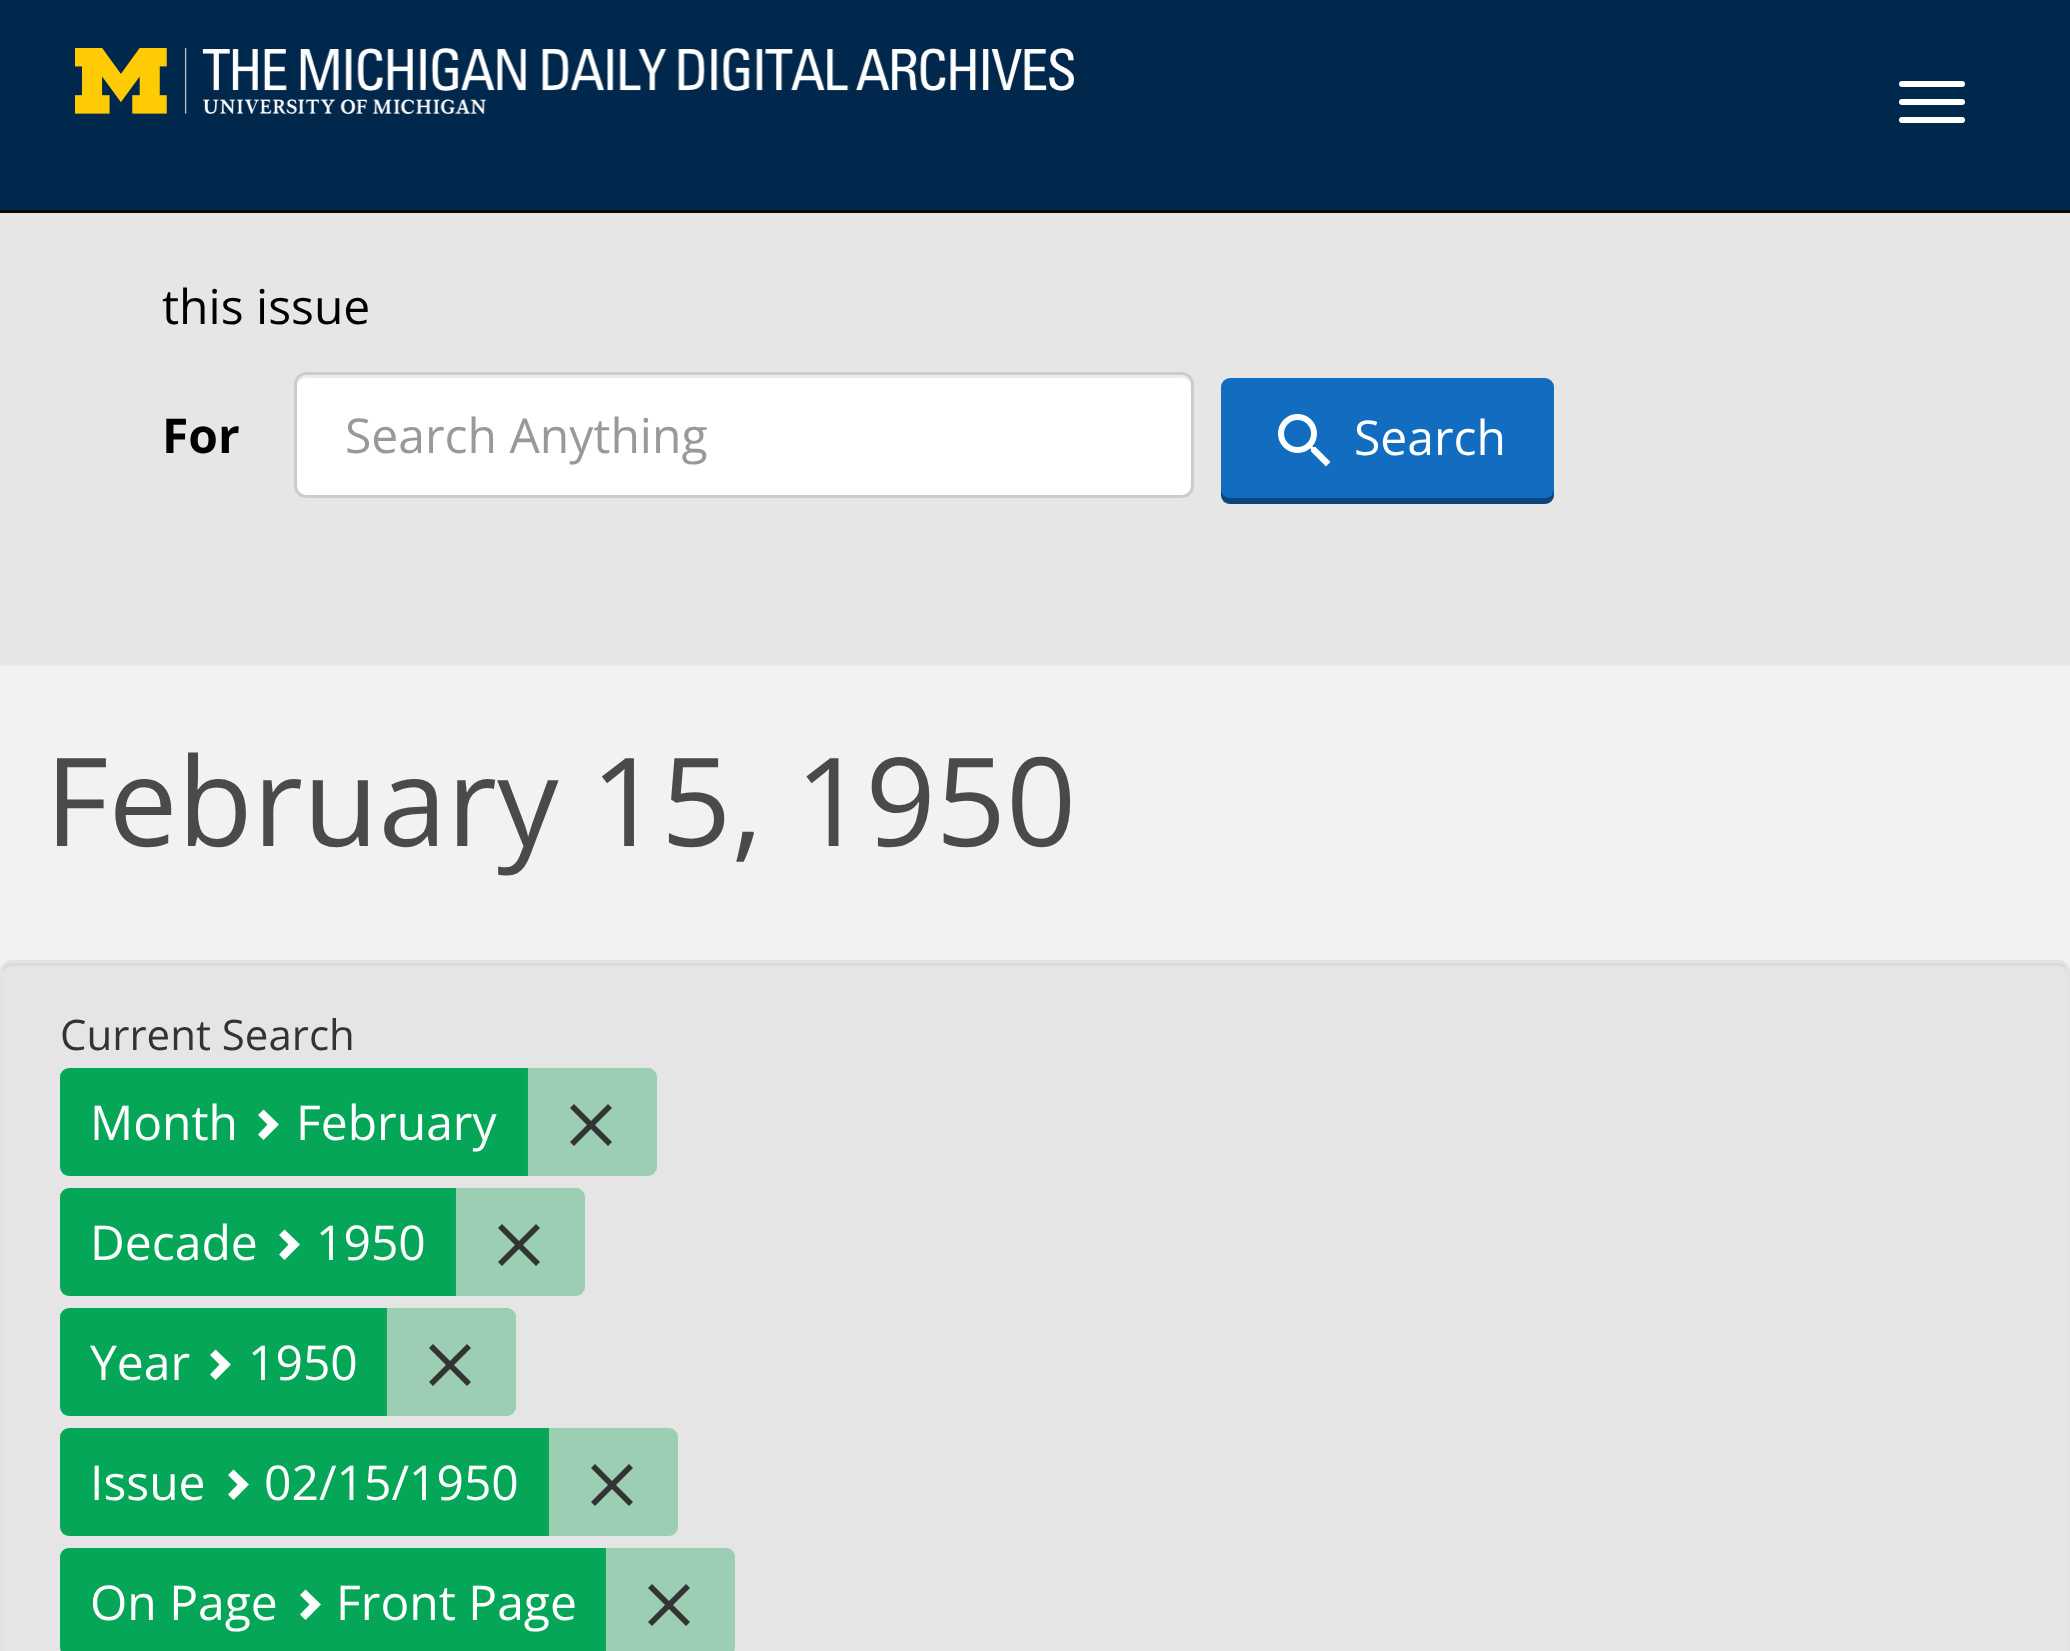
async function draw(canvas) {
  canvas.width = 2070
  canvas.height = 1651
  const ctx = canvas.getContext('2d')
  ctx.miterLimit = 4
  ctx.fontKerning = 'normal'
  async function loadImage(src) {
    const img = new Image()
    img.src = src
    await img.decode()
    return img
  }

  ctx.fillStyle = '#f2f2f2'
  ctx.fillRect(0, 0, 2070, 1651)
  ctx.fillStyle = '#00274c'
  ctx.fillRect(0, 0, 2070, 210)
  ctx.fillStyle = '#090909'
  ctx.fillRect(0, 210, 2070, 3)
  ctx.drawImage(await loadImage('image0.png'), 75, 48, 999, 66)
  ctx.fillStyle = '#fff'
  ctx.beginPath()
  ctx.roundRect(1899, 81, 66, 6, 3)
  ctx.fill()
  ctx.beginPath()
  ctx.roundRect(1899, 99, 66, 6, 3)
  ctx.fill()
  ctx.beginPath()
  ctx.roundRect(1899, 117, 66, 6, 3)
  ctx.fill()
  ctx.fillStyle = '#e7e7e7'
  ctx.fillRect(0, 663, 2070, 3)
  ctx.fillStyle = '#e6e6e6'
  ctx.fillRect(0, 213, 2070, 450)
  ctx.font = '48px Open Sans'
  ctx.fillStyle = '#000'
  ctx.fillText('this issue', 162, 324)
  ctx.font = 'bold 48px Open Sans'
  ctx.fillText('For', 162, 453)
  ctx.fillStyle = '#fff'
  ctx.beginPath()
  ctx.roundRect(294, 372, 900, 126, 12)
  ctx.fill()
  ctx.fillStyle = '#ececec'
  ctx.beginPath()
  ctx.moveTo(306, 378)
  ctx.lineTo(1182, 378)
  ctx.bezierCurveTo(1187, 378, 1191, 382, 1191, 387)
  ctx.lineTo(1191, 384)
  ctx.bezierCurveTo(1191, 379, 1187, 375, 1182, 375)
  ctx.lineTo(306, 375)
  ctx.bezierCurveTo(301, 375, 297, 379, 297, 384)
  ctx.lineTo(297, 387)
  ctx.bezierCurveTo(297, 382, 301, 378, 306, 378)
  ctx.closePath()
  ctx.fill()
  ctx.beginPath()
  ctx.roundRect(295.5, 373.5, 897, 123, 10.5)
  ctx.strokeStyle = '#ccc'
  ctx.lineWidth = 3
  ctx.stroke()
  ctx.font = '48px Open Sans'
  ctx.fillStyle = '#999'
  ctx.fillText('Search Anything', 345, 453)
  ctx.fillStyle = '#126dc1'
  ctx.beginPath()
  ctx.roundRect(1221, 378, 333, 126, 9)
  ctx.fill()
  ctx.fillStyle = '#0000005c'
  ctx.beginPath()
  ctx.moveTo(1221, 489)
  ctx.lineTo(1221, 495)
  ctx.bezierCurveTo(1221, 500, 1225, 504, 1230, 504)
  ctx.lineTo(1545, 504)
  ctx.bezierCurveTo(1550, 504, 1554, 500, 1554, 495)
  ctx.lineTo(1554, 489)
  ctx.bezierCurveTo(1554, 494, 1550, 498, 1545, 498)
  ctx.lineTo(1230, 498)
  ctx.bezierCurveTo(1225, 498, 1221, 494, 1221, 489)
  ctx.closePath()
  ctx.fill()
  ctx.drawImage(await loadImage('image1.png'), 1278, 414, 53, 53)
  ctx.fillStyle = '#fff'
  ctx.fillText('Search', 1354, 455)
  ctx.font = '123px Open Sans'
  ctx.fillStyle = '#4a4a4a'
  ctx.fillText('February 15, 1950', 45, 846)
  ctx.fillStyle = '#e5e5e5'
  ctx.beginPath()
  ctx.roundRect(0, 960, 2070, 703, 12)
  ctx.fill()
  ctx.fillStyle = '#dadada'
  ctx.beginPath()
  ctx.moveTo(12, 966)
  ctx.lineTo(2058, 966)
  ctx.bezierCurveTo(2063, 966, 2067, 970, 2067, 975)
  ctx.lineTo(2067, 972)
  ctx.bezierCurveTo(2067, 967, 2063, 963, 2058, 963)
  ctx.lineTo(12, 963)
  ctx.bezierCurveTo(7, 963, 3, 967, 3, 972)
  ctx.lineTo(3, 975)
  ctx.bezierCurveTo(3, 970, 7, 966, 12, 966)
  ctx.closePath()
  ctx.fill()
  ctx.beginPath()
  ctx.roundRect(1.5, 961.5, 2067, 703, 10.5)
  ctx.strokeStyle = '#e3e3e3'
  ctx.stroke()
  ctx.font = '42px Open Sans'
  ctx.fillStyle = '#333'
  ctx.fillText('Current Search', 60, 1050)
  ctx.fillStyle = '#05a657'
  ctx.beginPath()
  ctx.roundRect(60, 1068, 468, 108, [9, 0, 0, 9])
  ctx.fill()
  ctx.font = '48px Open Sans'
  ctx.fillStyle = '#fff'
  ctx.fillText('Month', 90, 1140)
  ctx.beginPath()
  ctx.moveTo(279, 1124.5)
  ctx.lineTo(263.5, 1140)
  ctx.lineTo(258, 1134.5)
  ctx.lineTo(267.5, 1124.5)
  ctx.lineTo(258, 1115)
  ctx.lineTo(263.5, 1109.5)
  ctx.closePath()
  ctx.fill()
  ctx.fillText('February', 296, 1140)
  ctx.fillStyle = '#1aa55a5c'
  ctx.beginPath()
  ctx.roundRect(525, 1068, 132, 108, [0, 9, 9, 0])
  ctx.fill()
  ctx.fillStyle = '#333'
  ctx.beginPath()
  ctx.moveTo(612, 1108)
  ctx.lineTo(595, 1125)
  ctx.lineTo(612, 1142)
  ctx.lineTo(608, 1146)
  ctx.lineTo(591, 1129)
  ctx.lineTo(574, 1146)
  ctx.lineTo(570, 1142)
  ctx.lineTo(587, 1125)
  ctx.lineTo(570, 1108)
  ctx.lineTo(574, 1104)
  ctx.lineTo(591, 1121)
  ctx.lineTo(608, 1104)
  ctx.closePath()
  ctx.fill()
  ctx.fillStyle = '#05a657'
  ctx.beginPath()
  ctx.roundRect(60, 1188, 396, 108, [9, 0, 0, 9])
  ctx.fill()
  ctx.fillStyle = '#fff'
  ctx.fillText('Decade', 90, 1260)
  ctx.beginPath()
  ctx.moveTo(300, 1244.5)
  ctx.lineTo(284.5, 1260)
  ctx.lineTo(279, 1254.5)
  ctx.lineTo(288.5, 1244.5)
  ctx.lineTo(279, 1235)
  ctx.lineTo(284.5, 1229.5)
  ctx.closePath()
  ctx.fill()
  ctx.fillText('1950', 316, 1260)
  ctx.fillStyle = '#1aa55a5c'
  ctx.beginPath()
  ctx.roundRect(453, 1188, 132, 108, [0, 9, 9, 0])
  ctx.fill()
  ctx.fillStyle = '#333'
  ctx.beginPath()
  ctx.moveTo(540, 1228)
  ctx.lineTo(523, 1245)
  ctx.lineTo(540, 1262)
  ctx.lineTo(536, 1266)
  ctx.lineTo(519, 1249)
  ctx.lineTo(502, 1266)
  ctx.lineTo(498, 1262)
  ctx.lineTo(515, 1245)
  ctx.lineTo(498, 1228)
  ctx.lineTo(502, 1224)
  ctx.lineTo(519, 1241)
  ctx.lineTo(536, 1224)
  ctx.closePath()
  ctx.fill()
  ctx.fillStyle = '#05a657'
  ctx.beginPath()
  ctx.roundRect(60, 1308, 327, 108, [9, 0, 0, 9])
  ctx.fill()
  ctx.fillStyle = '#fff'
  ctx.fillText('Year', 90, 1380)
  ctx.beginPath()
  ctx.moveTo(231, 1364.5)
  ctx.lineTo(215.5, 1380)
  ctx.lineTo(210, 1374.5)
  ctx.lineTo(219.5, 1364.5)
  ctx.lineTo(210, 1355)
  ctx.lineTo(215.5, 1349.5)
  ctx.closePath()
  ctx.fill()
  ctx.fillText('1950', 248, 1380)
  ctx.fillStyle = '#1aa55a5c'
  ctx.beginPath()
  ctx.roundRect(384, 1308, 132, 108, [0, 9, 9, 0])
  ctx.fill()
  ctx.fillStyle = '#333'
  ctx.beginPath()
  ctx.moveTo(471, 1348)
  ctx.lineTo(454, 1365)
  ctx.lineTo(471, 1382)
  ctx.lineTo(467, 1386)
  ctx.lineTo(450, 1369)
  ctx.lineTo(433, 1386)
  ctx.lineTo(429, 1382)
  ctx.lineTo(446, 1365)
  ctx.lineTo(429, 1348)
  ctx.lineTo(433, 1344)
  ctx.lineTo(450, 1361)
  ctx.lineTo(467, 1344)
  ctx.closePath()
  ctx.fill()
  ctx.fillStyle = '#05a657'
  ctx.beginPath()
  ctx.roundRect(60, 1428, 489, 108, [9, 0, 0, 9])
  ctx.fill()
  ctx.fillStyle = '#fff'
  ctx.fillText('Issue', 90, 1500)
  ctx.beginPath()
  ctx.moveTo(249, 1484.5)
  ctx.lineTo(233.5, 1500)
  ctx.lineTo(228, 1494.5)
  ctx.lineTo(237.5, 1484.5)
  ctx.lineTo(228, 1475)
  ctx.lineTo(233.5, 1469.5)
  ctx.closePath()
  ctx.fill()
  ctx.fillText('02/15/1950', 264, 1500)
  ctx.fillStyle = '#1aa55a5c'
  ctx.beginPath()
  ctx.roundRect(546, 1428, 132, 108, [0, 9, 9, 0])
  ctx.fill()
  ctx.fillStyle = '#333'
  ctx.beginPath()
  ctx.moveTo(633, 1468)
  ctx.lineTo(616, 1485)
  ctx.lineTo(633, 1502)
  ctx.lineTo(629, 1506)
  ctx.lineTo(612, 1489)
  ctx.lineTo(595, 1506)
  ctx.lineTo(591, 1502)
  ctx.lineTo(608, 1485)
  ctx.lineTo(591, 1468)
  ctx.lineTo(595, 1464)
  ctx.lineTo(612, 1481)
  ctx.lineTo(629, 1464)
  ctx.closePath()
  ctx.fill()
  ctx.fillStyle = '#05a657'
  ctx.beginPath()
  ctx.moveTo(69, 1548)
  ctx.lineTo(606, 1548)
  ctx.lineTo(606, 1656)
  ctx.lineTo(69, 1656)
  ctx.bezierCurveTo(64, 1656, 60, 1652, 60, 1647)
  ctx.lineTo(60, 1557)
  ctx.bezierCurveTo(60, 1552, 64, 1548, 69, 1548)
  ctx.closePath()
  ctx.fill()
  ctx.fillStyle = '#fff'
  ctx.fillText('On Page', 90, 1620)
  ctx.beginPath()
  ctx.moveTo(321, 1604.5)
  ctx.lineTo(305.5, 1620)
  ctx.lineTo(300, 1614.5)
  ctx.lineTo(309.5, 1604.5)
  ctx.lineTo(300, 1595)
  ctx.lineTo(305.5, 1589.5)
  ctx.closePath()
  ctx.fill()
  ctx.fillText('Front Page', 336, 1620)
  ctx.fillStyle = '#1aa55a5c'
  ctx.beginPath()
  ctx.moveTo(603, 1548)
  ctx.lineTo(726, 1548)
  ctx.bezierCurveTo(731, 1548, 735, 1552, 735, 1557)
  ctx.lineTo(735, 1647)
  ctx.bezierCurveTo(735, 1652, 731, 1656, 726, 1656)
  ctx.lineTo(603, 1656)
  ctx.closePath()
  ctx.fill()
  ctx.fillStyle = '#333'
  ctx.beginPath()
  ctx.moveTo(690, 1588)
  ctx.lineTo(673, 1605)
  ctx.lineTo(690, 1622)
  ctx.lineTo(686, 1626)
  ctx.lineTo(669, 1609)
  ctx.lineTo(652, 1626)
  ctx.lineTo(648, 1622)
  ctx.lineTo(665, 1605)
  ctx.lineTo(648, 1588)
  ctx.lineTo(652, 1584)
  ctx.lineTo(669, 1601)
  ctx.lineTo(686, 1584)
  ctx.closePath()
  ctx.fill()
}

draw(document.querySelector('canvas'))
